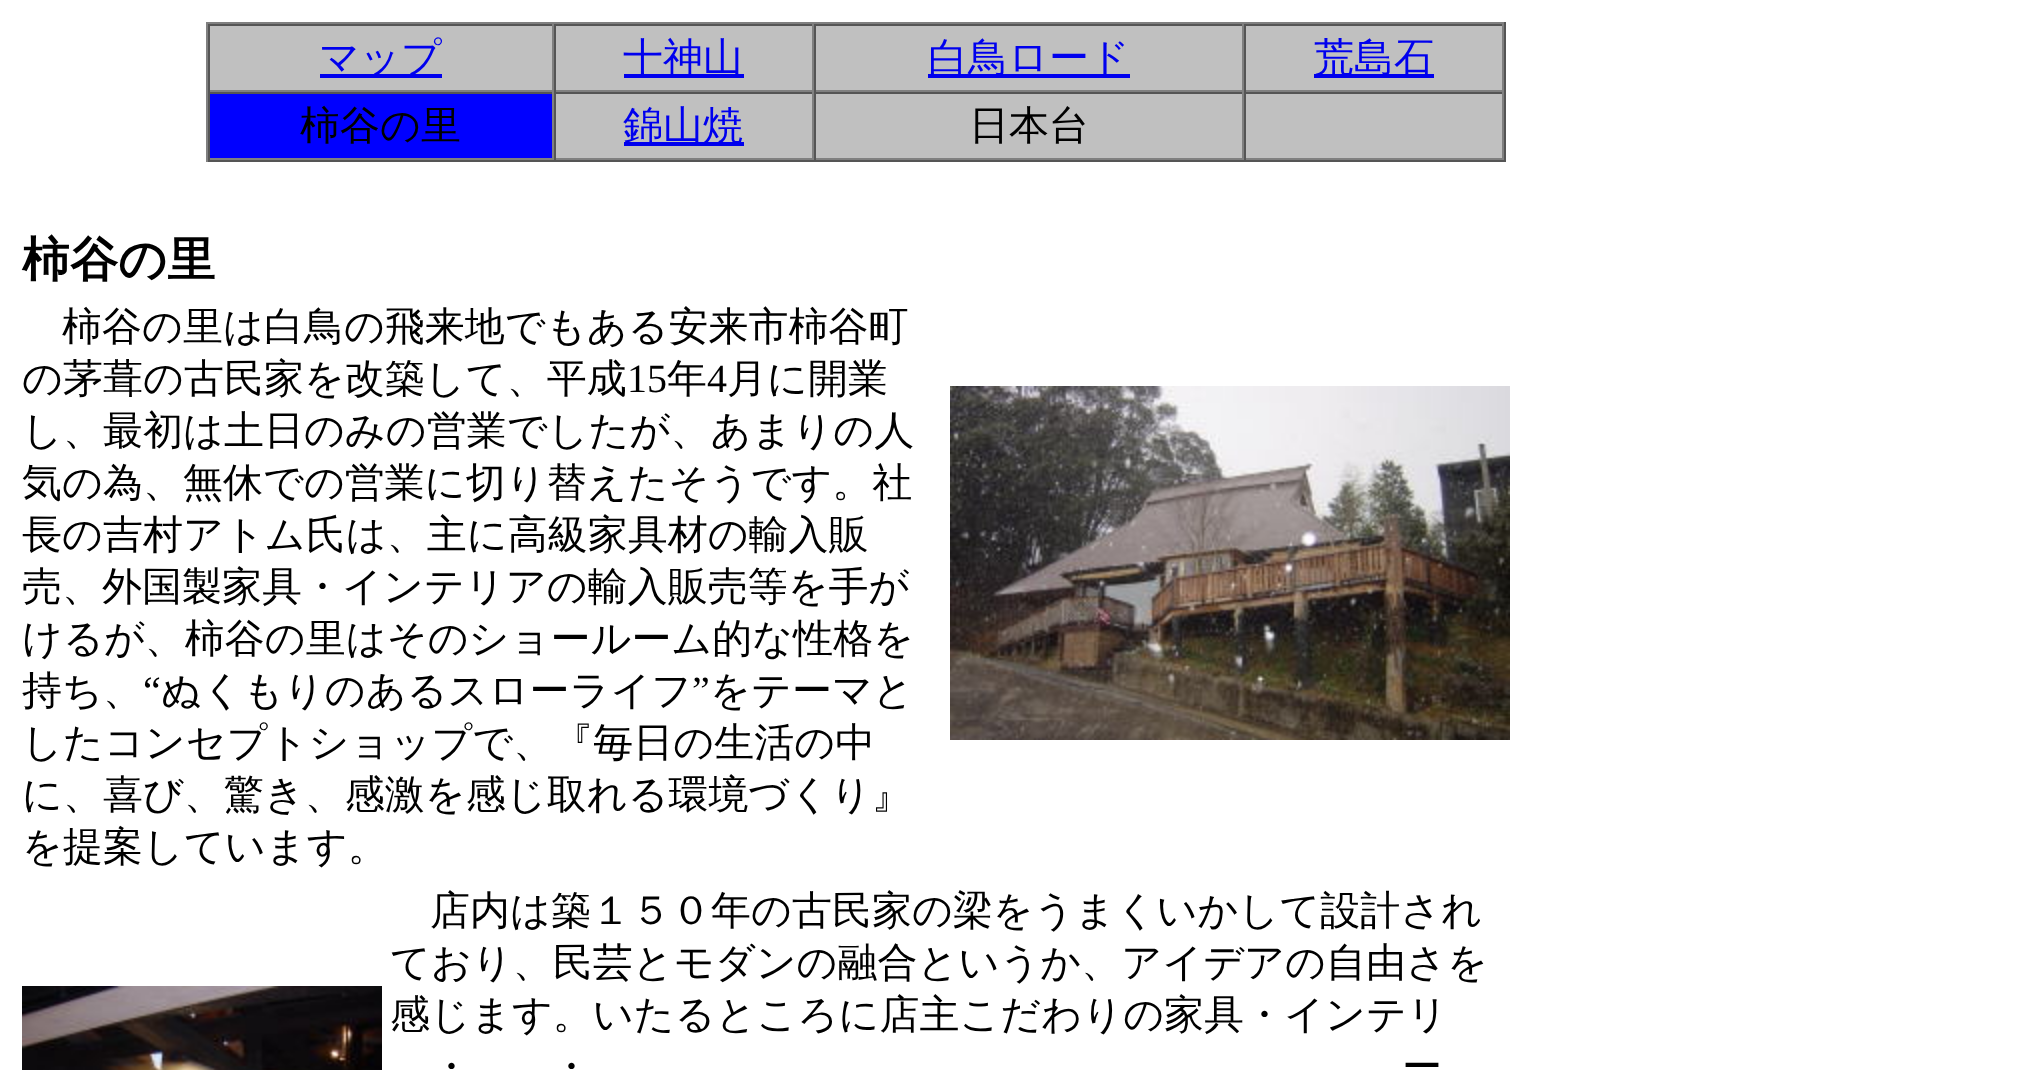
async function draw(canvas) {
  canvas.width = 2028
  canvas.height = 1070
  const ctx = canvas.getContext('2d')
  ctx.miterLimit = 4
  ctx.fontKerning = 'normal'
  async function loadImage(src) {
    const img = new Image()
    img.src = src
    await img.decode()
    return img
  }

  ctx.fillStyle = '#fff'
  ctx.fillRect(0, 0, 2028, 1070)
  ctx.fillStyle = '#808080'
  ctx.fillRect(206, 22, 1300, 2)
  ctx.fillStyle = '#555'
  ctx.fillRect(1504, 22, 2, 140)
  ctx.fillRect(206, 160, 1300, 2)
  ctx.fillStyle = '#808080'
  ctx.fillRect(206, 22, 2, 140)
  ctx.fillStyle = '#c0c0c0'
  ctx.fillRect(210, 26, 342, 64)
  ctx.fillStyle = '#555'
  ctx.fillRect(208, 24, 1296, 2)
  ctx.fillStyle = '#808080'
  ctx.fillRect(552, 24, 2, 68)
  ctx.fillRect(208, 90, 346, 2)
  ctx.fillStyle = '#555'
  ctx.fillRect(208, 24, 2, 68)
  ctx.fillStyle = '#00e'
  ctx.fillRect(320, 74, 122, 4)
  ctx.font = '500 40px WenQuanYi Zen Hei'
  ctx.fillText('マップ', 319, 71)
  ctx.fillStyle = '#c0c0c0'
  ctx.fillRect(556, 26, 256, 64)
  ctx.fillStyle = '#808080'
  ctx.fillRect(812, 24, 2, 68)
  ctx.fillRect(554, 90, 260, 2)
  ctx.fillStyle = '#555'
  ctx.fillRect(554, 24, 2, 68)
  ctx.fillStyle = '#00e'
  ctx.fillRect(624, 74, 120, 4)
  ctx.fillText('十神山', 623, 71)
  ctx.fillStyle = '#c0c0c0'
  ctx.fillRect(816, 26, 426, 64)
  ctx.fillStyle = '#808080'
  ctx.fillRect(1242, 24, 2, 68)
  ctx.fillRect(814, 90, 430, 2)
  ctx.fillStyle = '#555'
  ctx.fillRect(814, 24, 2, 68)
  ctx.fillStyle = '#00e'
  ctx.fillRect(928, 74, 202, 4)
  ctx.fillText('白鳥ロード', 928, 71)
  ctx.fillStyle = '#c0c0c0'
  ctx.fillRect(1246, 26, 256, 64)
  ctx.fillStyle = '#808080'
  ctx.fillRect(1502, 24, 2, 68)
  ctx.fillRect(1244, 90, 260, 2)
  ctx.fillStyle = '#555'
  ctx.fillRect(1244, 24, 2, 68)
  ctx.fillStyle = '#00e'
  ctx.fillRect(1314, 74, 120, 4)
  ctx.fillText('荒島石', 1314, 71)
  ctx.fillStyle = '#00f'
  ctx.fillRect(210, 94, 342, 64)
  ctx.fillStyle = '#555'
  ctx.fillRect(208, 92, 1296, 2)
  ctx.fillStyle = '#808080'
  ctx.fillRect(552, 92, 2, 68)
  ctx.fillRect(208, 158, 346, 2)
  ctx.fillStyle = '#555'
  ctx.fillRect(208, 92, 2, 68)
  ctx.fillStyle = '#000'
  ctx.fillText('柿谷の里', 300, 139)
  ctx.fillStyle = '#c0c0c0'
  ctx.fillRect(556, 94, 256, 64)
  ctx.fillStyle = '#808080'
  ctx.fillRect(812, 92, 2, 68)
  ctx.fillRect(554, 158, 260, 2)
  ctx.fillStyle = '#555'
  ctx.fillRect(554, 92, 2, 68)
  ctx.fillStyle = '#00e'
  ctx.fillRect(624, 142, 120, 4)
  ctx.fillText('錦山焼', 623, 139)
  ctx.fillStyle = '#c0c0c0'
  ctx.fillRect(816, 94, 426, 64)
  ctx.fillStyle = '#808080'
  ctx.fillRect(1242, 92, 2, 68)
  ctx.fillRect(814, 158, 430, 2)
  ctx.fillStyle = '#555'
  ctx.fillRect(814, 92, 2, 68)
  ctx.fillStyle = '#000'
  ctx.fillText('日本台', 969, 139)
  ctx.fillStyle = '#c0c0c0'
  ctx.fillRect(1246, 94, 256, 64)
  ctx.fillStyle = '#808080'
  ctx.fillRect(1502, 92, 2, 68)
  ctx.fillRect(1244, 158, 260, 2)
  ctx.fillStyle = '#555'
  ctx.fillRect(1244, 92, 2, 68)
  ctx.font = 'bold 48px WenQuanYi Zen Hei'
  ctx.fillStyle = '#000'
  ctx.fillText('柿谷の里', 22, 276)
  ctx.font = '500 40px WenQuanYi Zen Hei'
  ctx.fillText('柿谷の里は白鳥の飛来地でもある安来市柿谷町', 62, 340)
  ctx.fillText('の茅葺の古民家を改築して、平成', 22, 392)
  ctx.font = '40px Liberation Serif'
  ctx.fillText('15', 627, 392)
  ctx.font = '500 40px WenQuanYi Zen Hei'
  ctx.fillText('年', 667, 392)
  ctx.font = '40px Liberation Serif'
  ctx.fillText('4', 707, 392)
  ctx.font = '500 40px WenQuanYi Zen Hei'
  ctx.fillText('月に開業', 727, 392)
  ctx.fillText('し、最初は土日のみの営業でしたが、あまりの人', 22, 444)
  ctx.fillText('気の為、無休での営業に切り替えたそうです。社', 22, 496)
  ctx.fillText('長の吉村アトム氏は、主に高級家具材の輸入販', 22, 548)
  ctx.fillText('売、外国製家具・インテリアの輸入販売等を手が', 22, 600)
  ctx.fillText('けるが、柿谷の里はそのショールーム的な性格を', 22, 652)
  ctx.fillText('持ち、', 22, 704)
  ctx.font = '40px Liberation Serif'
  ctx.fillText('“', 143, 704)
  ctx.font = '500 40px WenQuanYi Zen Hei'
  ctx.fillText('ぬくもりのあるスローライフ', 161, 704)
  ctx.font = '40px Liberation Serif'
  ctx.fillText('”', 692, 704)
  ctx.font = '500 40px WenQuanYi Zen Hei'
  ctx.fillText('をテーマと', 710, 704)
  ctx.fillText('したコンセプトショップで、『毎日の生活の中', 22, 756)
  ctx.fillText('に、喜び、驚き、感激を感じ取れる環境づくり』', 22, 808)
  ctx.fillText('を提案しています。', 22, 860)
  ctx.drawImage(await loadImage('image0.png'), 950, 386, 560, 354)
  ctx.drawImage(await loadImage('image1.png'), 22, 986, 360, 84)
  ctx.fillText('店内は築１５０年の古民家の梁をうまくいかして設計され', 430, 924)
  ctx.fillText('ており、民芸とモダンの融合というか、アイデアの自由さを', 390, 976)
  ctx.fillText('感じます。いたるところに店主こだわりの家具・インテリ', 390, 1028)
  ctx.fillText('・', 431, 1080)
  ctx.fillText('・', 551, 1080)
  ctx.fillText('ー', 1402, 1080)
}

draw(document.querySelector('canvas'))
